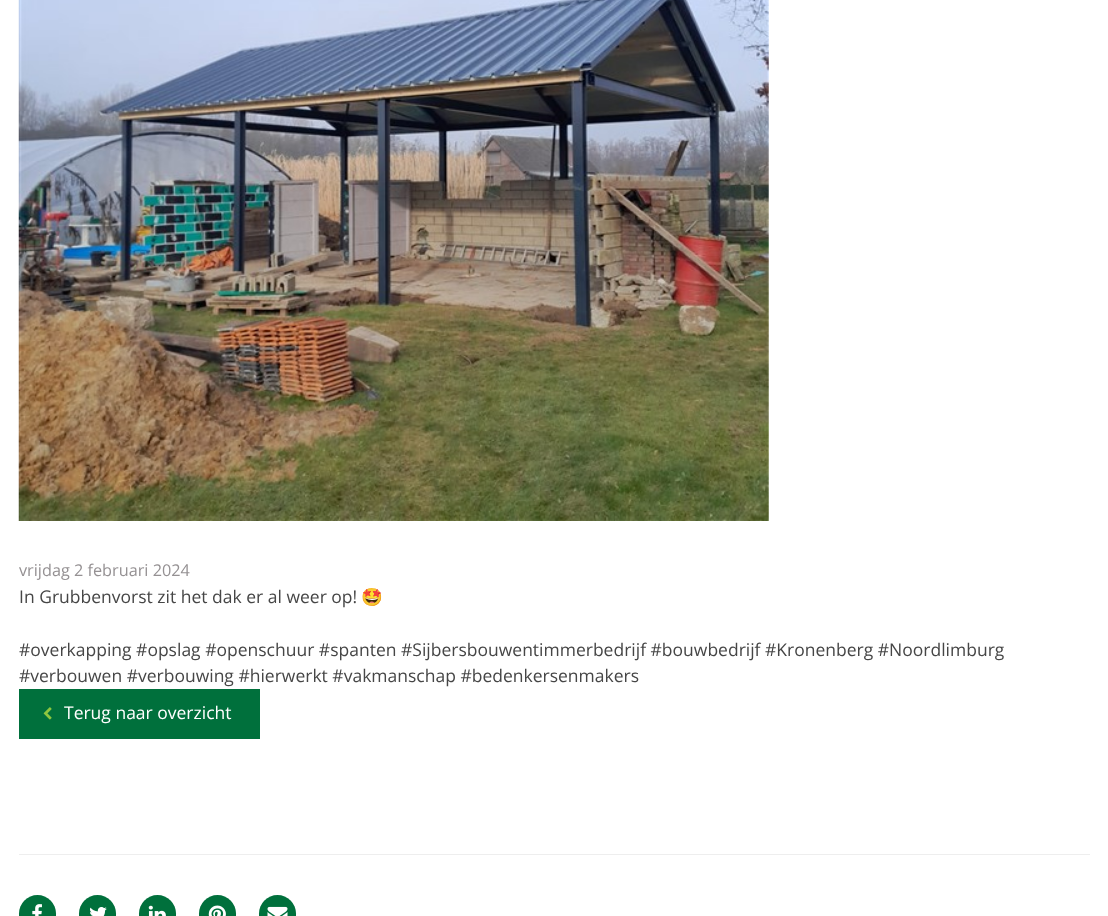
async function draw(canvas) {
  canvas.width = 1108
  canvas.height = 916
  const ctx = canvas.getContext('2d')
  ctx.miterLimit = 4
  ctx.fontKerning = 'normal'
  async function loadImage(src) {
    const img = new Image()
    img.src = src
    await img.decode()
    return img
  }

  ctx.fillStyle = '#fff'
  ctx.fillRect(0, 0, 1108, 916)
  ctx.drawImage(await loadImage('image0.png'), 18, 0, 751, 521)
  ctx.font = '16.25px Open Sans'
  ctx.fillStyle = '#959193'
  ctx.fillText('vrijdag 2 februari 2024', 19, 576)
  ctx.font = '17.5px Open Sans'
  ctx.fillStyle = '#464646'
  ctx.fillText('In Grubbenvorst zit het dak er al weer op!', 19, 603)
  ctx.font = '17.5px Noto Color Emoji'
  ctx.fillText('🤩', 361, 603)
  ctx.font = '17.5px Open Sans'
  ctx.fillText('#overkapping #opslag #openschuur #spanten #Sijbersbouwentimmerbedrijf #bouwbedrijf #Kronenberg #Noordlimburg', 19, 656)
  ctx.fillText('#verbouwen #verbouwing #hierwerkt #vakmanschap #bedenkersenmakers', 19, 682)
  ctx.fillStyle = '#00703c'
  ctx.fillRect(19, 689, 241, 50)
  ctx.drawImage(await loadImage('image1.png'), 43, 707, 9, 13)
  ctx.fillStyle = '#fff'
  ctx.fillText('Terug naar overzicht', 64, 719)
  ctx.fillStyle = '#eee'
  ctx.fillRect(19, 854, 1071, 1)
  ctx.fillStyle = '#00703c'
  ctx.beginPath()
  ctx.roundRect(19, 895, 37, 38, 18.5)
  ctx.fill()
  ctx.drawImage(await loadImage('image2.png'), 32, 904, 10, 12)
  ctx.beginPath()
  ctx.roundRect(79, 895, 37, 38, 18.5)
  ctx.fill()
  ctx.drawImage(await loadImage('image3.png'), 90, 907, 17, 9)
  ctx.beginPath()
  ctx.roundRect(139, 895, 37, 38, 18.5)
  ctx.fill()
  ctx.drawImage(await loadImage('image4.png'), 148, 905, 18, 11)
  ctx.beginPath()
  ctx.roundRect(199, 895, 37, 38, 18.5)
  ctx.fill()
  ctx.drawImage(await loadImage('image5.png'), 208, 905, 18, 11)
  ctx.beginPath()
  ctx.roundRect(259, 895, 37, 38, 18.5)
  ctx.fill()
  ctx.drawImage(await loadImage('image6.png'), 267, 906, 21, 10)
}

draw(document.querySelector('canvas'))
